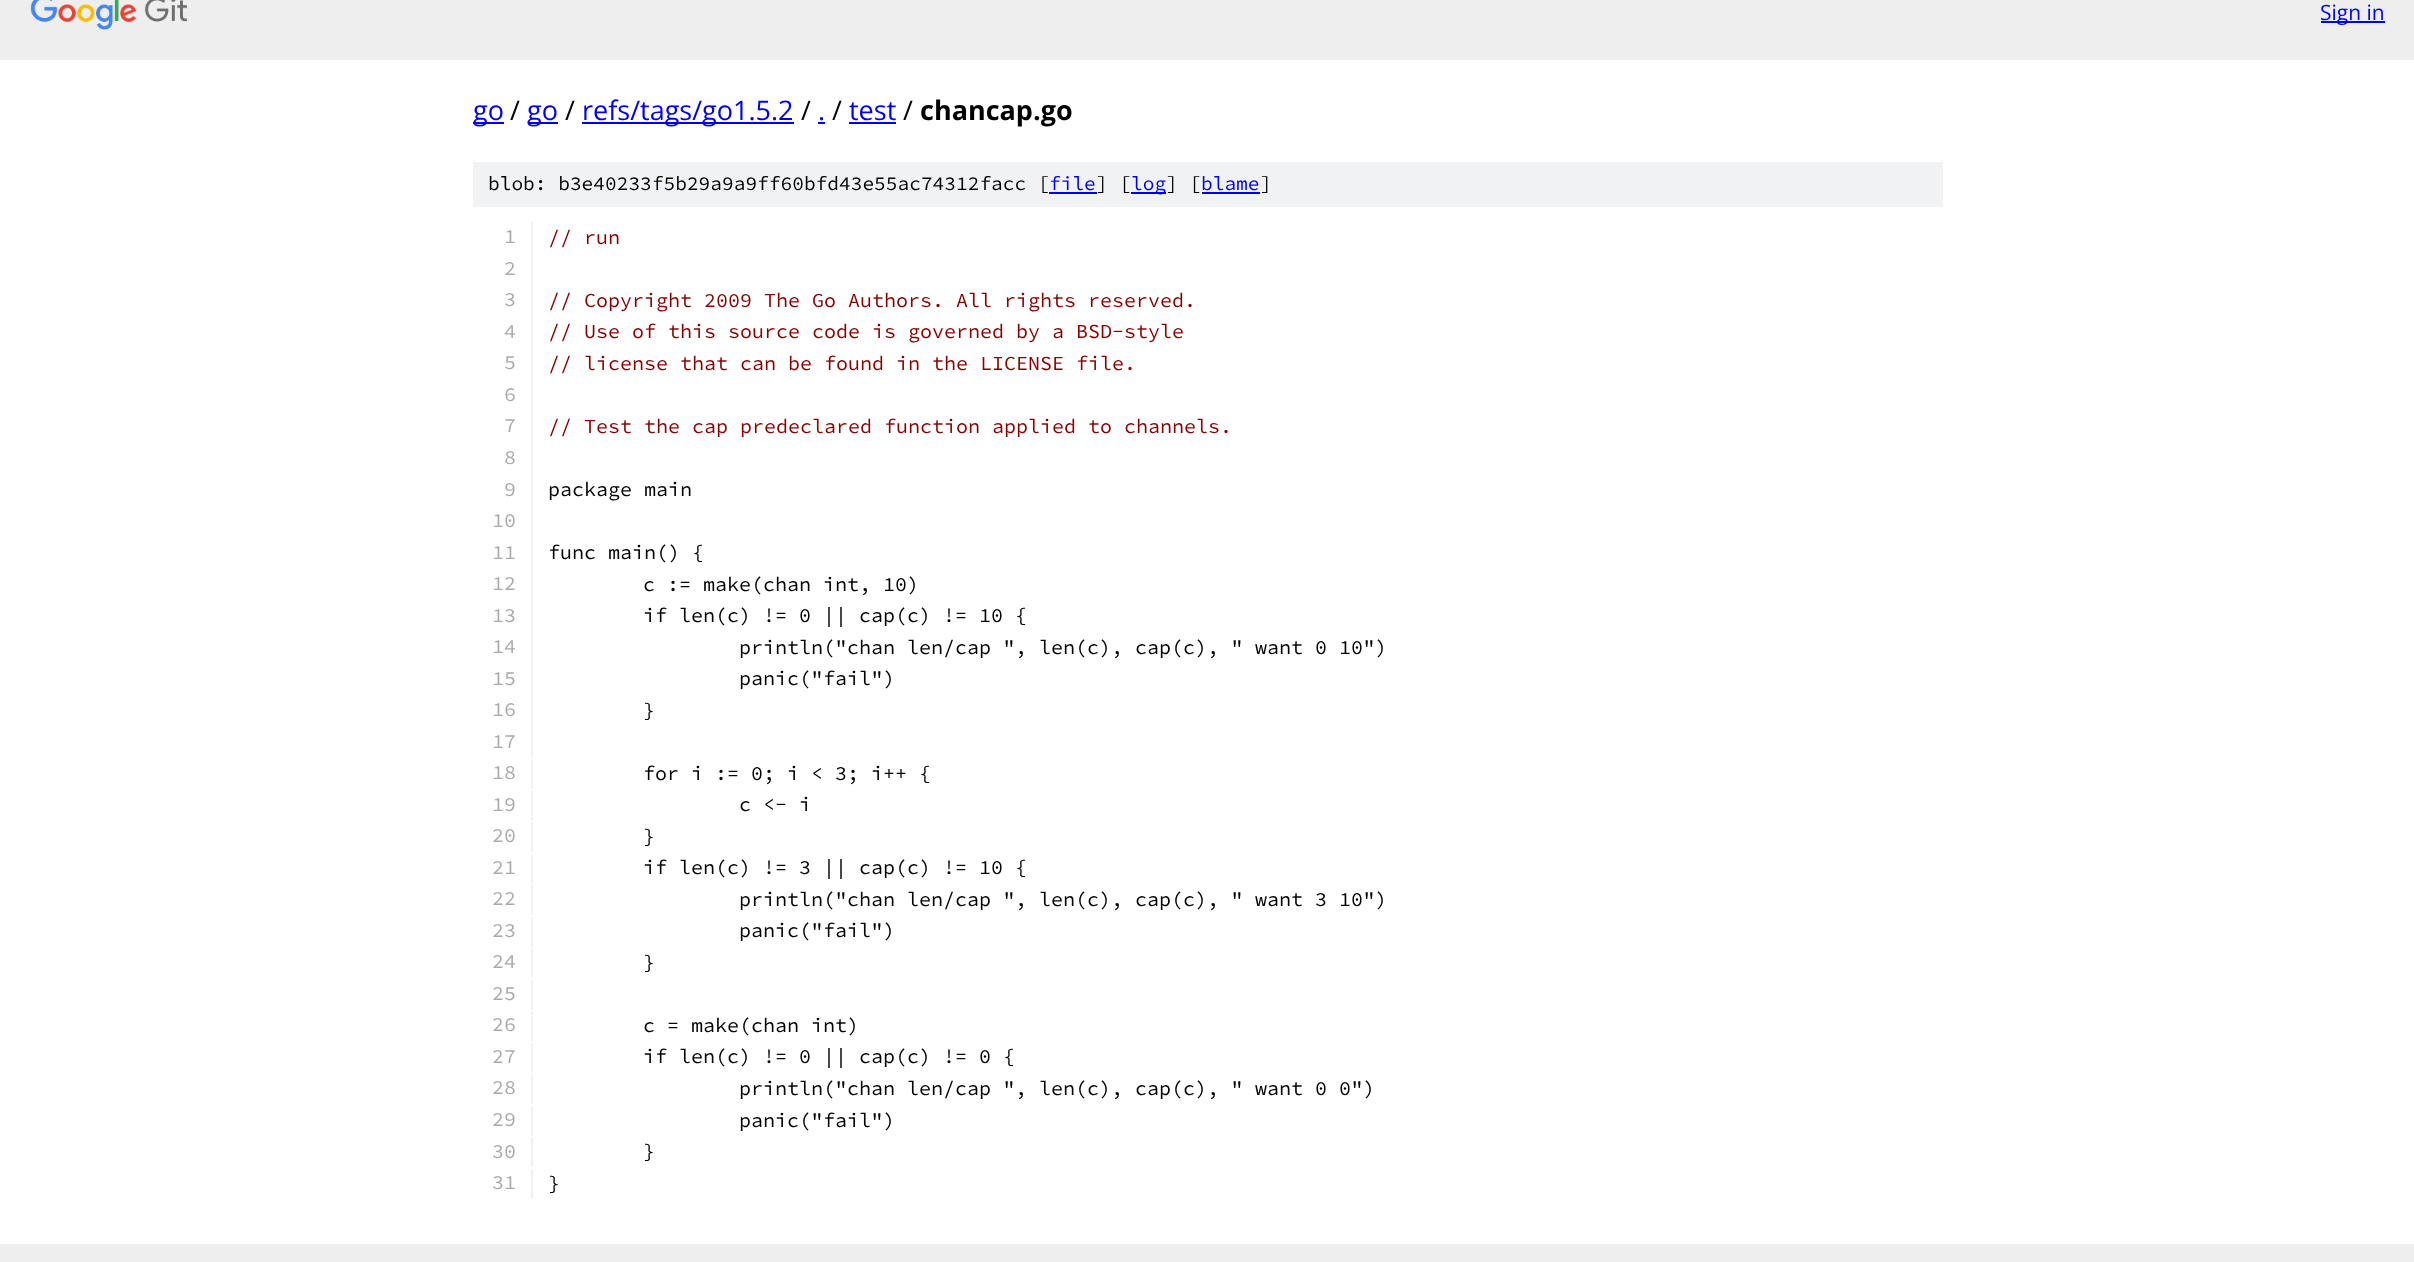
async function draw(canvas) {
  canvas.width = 2414
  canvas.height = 1262
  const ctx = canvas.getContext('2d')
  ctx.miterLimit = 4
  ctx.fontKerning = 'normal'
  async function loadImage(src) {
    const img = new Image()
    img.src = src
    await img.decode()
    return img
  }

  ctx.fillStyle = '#fff'
  ctx.fillRect(0, 0, 2414, 1262)
  ctx.fillStyle = '#eee'
  ctx.fillRect(0, 0, 2414, 60)
  ctx.drawImage(await loadImage('image0.png'), 30, 0, 157, 30)
  ctx.fillStyle = '#00e'
  ctx.fillRect(2321, 21, 64, 2)
  ctx.font = '21px Open Sans'
  ctx.fillText('Sign in', 2320, 20)
  ctx.fillRect(473, 122, 31, 2)
  ctx.font = '27px Open Sans'
  ctx.fillText('go', 473, 120)
  ctx.fillStyle = '#000'
  ctx.fillText('/', 510, 120)
  ctx.fillStyle = '#00e'
  ctx.fillRect(528, 122, 30, 2)
  ctx.fillText('go', 527, 120)
  ctx.fillStyle = '#000'
  ctx.fillText('/', 565, 120)
  ctx.fillStyle = '#00e'
  ctx.fillRect(582, 122, 212, 2)
  ctx.fillText('refs/tags/go1.5.2', 582, 120)
  ctx.fillStyle = '#000'
  ctx.fillText('/', 801, 120)
  ctx.fillStyle = '#00e'
  ctx.fillText('.', 818, 120)
  ctx.fillRect(818, 122, 7, 2)
  ctx.fillStyle = '#000'
  ctx.fillText('/', 832, 120)
  ctx.fillStyle = '#00e'
  ctx.fillText('test', 849, 120)
  ctx.fillRect(849, 122, 47, 2)
  ctx.fillStyle = '#000'
  ctx.fillText('/', 903, 120)
  ctx.font = 'bold 27px Open Sans'
  ctx.fillText('chancap.go', 920, 120)
  ctx.fillStyle = '#f1f2f3'
  ctx.fillRect(473, 162, 1470, 45)
  ctx.font = '200 19.5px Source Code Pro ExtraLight'
  ctx.fillStyle = '#000'
  ctx.fillText('blob: b3e40233f5b29a9a9ff60bfd43e55ac74312facc [', 488, 190)
  ctx.fillStyle = '#00e'
  ctx.fillText('file', 1049, 190)
  ctx.fillRect(1049, 192, 48, 2)
  ctx.fillStyle = '#000'
  ctx.fillText('] [', 1096, 190)
  ctx.fillStyle = '#00e'
  ctx.fillRect(1131, 192, 35, 2)
  ctx.fillText('log', 1131, 190)
  ctx.fillStyle = '#000'
  ctx.fillText('] [', 1166, 190)
  ctx.fillStyle = '#00e'
  ctx.fillText('blame', 1201, 190)
  ctx.fillRect(1202, 192, 58, 2)
  ctx.fillStyle = '#000'
  ctx.fillText(']', 1260, 190)
  ctx.fillStyle = '#f1f2f3'
  ctx.fillRect(531, 222, 2, 536)
  ctx.font = '200 20px Source Code Pro ExtraLight'
  ctx.fillStyle = '#aaa'
  ctx.fillText('1', 504, 243)
  ctx.fillStyle = '#800'
  ctx.fillText('// run', 548, 244)
  ctx.fillStyle = '#aaa'
  ctx.fillText('2', 504, 275)
  ctx.fillText('3', 504, 306)
  ctx.fillStyle = '#800'
  ctx.fillText('// Copyright 2009 The Go Authors. All rights reserved.', 548, 307)
  ctx.fillStyle = '#aaa'
  ctx.fillText('4', 504, 338)
  ctx.fillStyle = '#800'
  ctx.fillText('// Use of this source code is governed by a BSD-style', 548, 338)
  ctx.fillStyle = '#aaa'
  ctx.fillText('5', 504, 369)
  ctx.fillStyle = '#800'
  ctx.fillText('// license that can be found in the LICENSE file.', 548, 370)
  ctx.fillStyle = '#aaa'
  ctx.fillText('6', 504, 401)
  ctx.fillText('7', 504, 432)
  ctx.fillStyle = '#800'
  ctx.fillText('// Test the cap predeclared function applied to channels.', 548, 433)
  ctx.fillStyle = '#aaa'
  ctx.fillText('8', 504, 464)
  ctx.fillText('9', 504, 496)
  ctx.fillStyle = '#000'
  ctx.fillText('package main', 548, 496)
  ctx.fillStyle = '#aaa'
  ctx.fillText('10', 492, 527)
  ctx.fillText('11', 492, 559)
  ctx.fillStyle = '#000'
  ctx.fillText('func main() {', 548, 559)
  ctx.fillStyle = '#aaa'
  ctx.fillText('12', 492, 590)
  ctx.fillStyle = '#000'
  ctx.fillText('c := make(chan int, 10)', 643, 591)
  ctx.fillStyle = '#aaa'
  ctx.fillText('13', 492, 622)
  ctx.fillStyle = '#000'
  ctx.fillText('if len(c) != 0 || cap(c) != 10 {', 643, 622)
  ctx.fillStyle = '#aaa'
  ctx.fillText('14', 492, 653)
  ctx.fillStyle = '#000'
  ctx.fillText('println("chan len/cap ", len(c), cap(c), " want 0 10")', 739, 654)
  ctx.fillStyle = '#aaa'
  ctx.fillText('15', 492, 685)
  ctx.fillStyle = '#000'
  ctx.fillText('panic("fail")', 739, 685)
  ctx.fillStyle = '#aaa'
  ctx.fillText('16', 492, 716)
  ctx.fillStyle = '#000'
  ctx.fillText('}', 643, 717)
  ctx.fillStyle = '#aaa'
  ctx.fillText('17', 492, 748)
  ctx.fillStyle = '#f1f2f3'
  ctx.fillRect(531, 759, 2, 30)
  ctx.fillStyle = '#aaa'
  ctx.fillText('18', 492, 779)
  ctx.fillStyle = '#000'
  ctx.fillText('for i := 0; i < 3; i++ {', 643, 780)
  ctx.fillStyle = '#f1f2f3'
  ctx.fillRect(531, 791, 2, 30)
  ctx.fillStyle = '#aaa'
  ctx.fillText('19', 492, 811)
  ctx.fillStyle = '#000'
  ctx.fillText('c <- i', 739, 811)
  ctx.fillStyle = '#f1f2f3'
  ctx.fillRect(531, 822, 2, 30)
  ctx.fillStyle = '#aaa'
  ctx.fillText('20', 492, 842)
  ctx.fillStyle = '#000'
  ctx.fillText('}', 643, 843)
  ctx.fillStyle = '#f1f2f3'
  ctx.fillRect(531, 854, 2, 30)
  ctx.fillStyle = '#aaa'
  ctx.fillText('21', 492, 874)
  ctx.fillStyle = '#000'
  ctx.fillText('if len(c) != 3 || cap(c) != 10 {', 643, 874)
  ctx.fillStyle = '#f1f2f3'
  ctx.fillRect(531, 885, 2, 30)
  ctx.fillStyle = '#aaa'
  ctx.fillText('22', 492, 905)
  ctx.fillStyle = '#000'
  ctx.fillText('println("chan len/cap ", len(c), cap(c), " want 3 10")', 739, 906)
  ctx.fillStyle = '#f1f2f3'
  ctx.fillRect(531, 917, 2, 30)
  ctx.fillStyle = '#aaa'
  ctx.fillText('23', 492, 937)
  ctx.fillStyle = '#000'
  ctx.fillText('panic("fail")', 739, 937)
  ctx.fillStyle = '#f1f2f3'
  ctx.fillRect(531, 948, 2, 30)
  ctx.fillStyle = '#aaa'
  ctx.fillText('24', 492, 968)
  ctx.fillStyle = '#000'
  ctx.fillText('}', 643, 969)
  ctx.fillStyle = '#f1f2f3'
  ctx.fillRect(531, 980, 2, 30)
  ctx.fillStyle = '#aaa'
  ctx.fillText('25', 492, 1000)
  ctx.fillStyle = '#f1f2f3'
  ctx.fillRect(531, 1011, 2, 30)
  ctx.fillStyle = '#aaa'
  ctx.fillText('26', 492, 1031)
  ctx.fillStyle = '#000'
  ctx.fillText('c = make(chan int)', 643, 1032)
  ctx.fillStyle = '#f1f2f3'
  ctx.fillRect(531, 1043, 2, 30)
  ctx.fillStyle = '#aaa'
  ctx.fillText('27', 492, 1063)
  ctx.fillStyle = '#000'
  ctx.fillText('if len(c) != 0 || cap(c) != 0 {', 643, 1063)
  ctx.fillStyle = '#f1f2f3'
  ctx.fillRect(531, 1074, 2, 30)
  ctx.fillStyle = '#aaa'
  ctx.fillText('28', 492, 1094)
  ctx.fillStyle = '#000'
  ctx.fillText('println("chan len/cap ", len(c), cap(c), " want 0 0")', 739, 1095)
  ctx.fillStyle = '#f1f2f3'
  ctx.fillRect(531, 1106, 2, 30)
  ctx.fillStyle = '#aaa'
  ctx.fillText('29', 492, 1126)
  ctx.fillStyle = '#000'
  ctx.fillText('panic("fail")', 739, 1127)
  ctx.fillStyle = '#f1f2f3'
  ctx.fillRect(531, 1137, 2, 30)
  ctx.fillStyle = '#aaa'
  ctx.fillText('30', 492, 1158)
  ctx.fillStyle = '#000'
  ctx.fillText('}', 643, 1158)
  ctx.fillStyle = '#f1f2f3'
  ctx.fillRect(531, 1169, 2, 30)
  ctx.fillStyle = '#aaa'
  ctx.fillText('31', 492, 1189)
  ctx.fillStyle = '#000'
  ctx.fillText('}', 548, 1190)
  ctx.fillStyle = '#eee'
  ctx.fillRect(0, 1244, 2414, 18)
}

draw(document.querySelector('canvas'))
